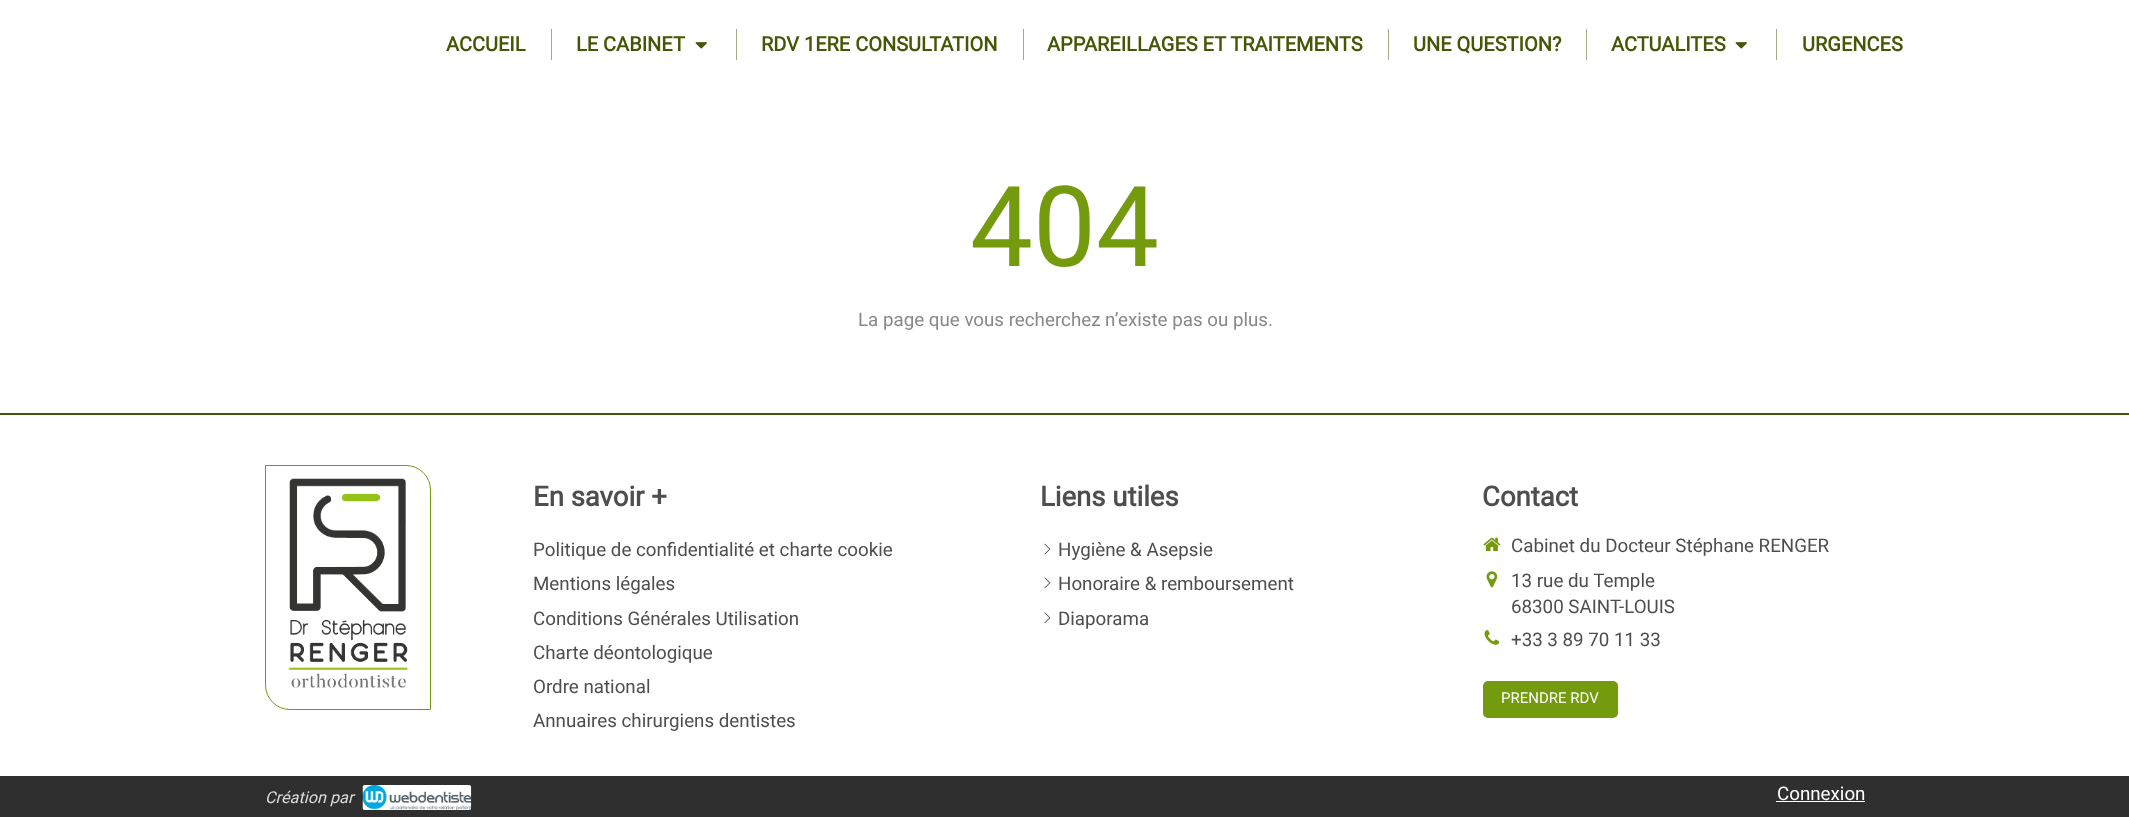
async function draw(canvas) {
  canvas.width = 2129
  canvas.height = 817
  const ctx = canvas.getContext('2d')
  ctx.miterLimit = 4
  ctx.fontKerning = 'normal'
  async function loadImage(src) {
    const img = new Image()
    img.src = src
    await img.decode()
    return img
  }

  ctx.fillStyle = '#fff'
  ctx.fillRect(0, 0, 2129, 817)
  ctx.font = 'bold 20px Roboto'
  ctx.fillStyle = '#435706'
  ctx.fillText('ACCUEIL', 446, 51)
  ctx.fillStyle = '#a1ab83'
  ctx.fillRect(551, 29, 1, 31)
  ctx.fillStyle = '#435706'
  ctx.fillText('LE CABINET', 576, 51)
  ctx.drawImage(await loadImage('image0.png'), 695, 42, 12, 7)
  ctx.fillStyle = '#a1ab83'
  ctx.fillRect(736, 29, 1, 31)
  ctx.fillStyle = '#435706'
  ctx.fillText('RDV 1ERE CONSULTATION', 761, 51)
  ctx.fillStyle = '#a1ab83'
  ctx.fillRect(1023, 29, 1, 31)
  ctx.fillStyle = '#435706'
  ctx.fillText('APPAREILLAGES ET TRAITEMENTS', 1047, 51)
  ctx.fillStyle = '#a1ab83'
  ctx.fillRect(1388, 29, 1, 31)
  ctx.fillStyle = '#435706'
  ctx.fillText('UNE QUESTION?', 1413, 51)
  ctx.fillStyle = '#a1ab83'
  ctx.fillRect(1586, 29, 1, 31)
  ctx.fillStyle = '#435706'
  ctx.fillText('ACTUALITES', 1611, 51)
  ctx.drawImage(await loadImage('image0.png'), 1735, 42, 12, 7)
  ctx.fillStyle = '#a1ab83'
  ctx.fillRect(1776, 29, 1, 31)
  ctx.fillStyle = '#435706'
  ctx.fillText('URGENCES', 1802, 51)
  ctx.font = '112px Roboto'
  ctx.fillStyle = '#749a0d'
  ctx.fillText('404', 970, 266)
  ctx.font = '18.75px Roboto'
  ctx.fillStyle = '#888'
  ctx.fillText('La page que vous recherchez n’existe pas ou plus.', 858, 326)
  ctx.fillStyle = '#435706'
  ctx.fillRect(0, 413, 2129, 2)
  ctx.beginPath()
  ctx.roundRect(265.5, 465.5, 165, 244, [0, 24.5, 0, 24.5])
  ctx.strokeStyle = '#749a0d'
  ctx.stroke()
  ctx.drawImage(await loadImage('image1.png'), 288, 478, 120, 210)
  ctx.font = 'bold 27.5px Roboto'
  ctx.fillStyle = '#4e4e4e'
  ctx.fillText('En savoir +', 533, 506)
  ctx.font = '18.75px Roboto'
  ctx.fillText('Politique de confidentialité et charte cookie', 533, 556)
  ctx.fillText('Mentions légales', 533, 590)
  ctx.fillText('Conditions Générales Utilisation', 533, 625)
  ctx.fillText('Charte déontologique', 533, 659)
  ctx.fillText('Ordre national', 533, 693)
  ctx.fillText('Annuaires chirurgiens dentistes', 533, 727)
  ctx.font = 'bold 27.5px Roboto'
  ctx.fillText('Liens utiles', 1040, 506)
  ctx.drawImage(await loadImage('image2.png'), 1044, 543, 7, 12)
  ctx.font = '18.75px Roboto'
  ctx.fillText('Hygiène & Asepsie', 1058, 556)
  ctx.drawImage(await loadImage('image3.png'), 1044, 577, 7, 12)
  ctx.fillText('Honoraire & remboursement', 1058, 590)
  ctx.drawImage(await loadImage('image3.png'), 1044, 612, 7, 12)
  ctx.fillText('Diaporama', 1058, 625)
  ctx.font = 'bold 27.5px Roboto'
  ctx.fillText('Contact', 1482, 506)
  ctx.drawImage(await loadImage('image4.png'), 1483, 537, 18, 15)
  ctx.font = '18.75px Roboto'
  ctx.fillText('Cabinet du Docteur Stéphane RENGER', 1511, 552)
  ctx.drawImage(await loadImage('image5.png'), 1486, 571, 12, 17)
  ctx.fillText('13 rue du Temple', 1511, 587)
  ctx.fillText('68300 SAINT-LOUIS', 1511, 613)
  ctx.drawImage(await loadImage('image6.png'), 1484, 630, 16, 15)
  ctx.fillText('+33 3 89 70 11 33', 1511, 646)
  ctx.fillStyle = '#749a0d'
  ctx.beginPath()
  ctx.roundRect(1483, 681, 135, 37, 5)
  ctx.fill()
  ctx.font = '15px Roboto'
  ctx.fillStyle = '#fff'
  ctx.fillText('PRENDRE RDV', 1501, 703)
  ctx.fillStyle = '#2f2f2f'
  ctx.fillRect(0, 776, 2129, 41)
  ctx.font = 'italic 16.25px Roboto'
  ctx.fillStyle = '#dcdcdc'
  ctx.fillText('Création par', 265, 803)
  ctx.drawImage(await loadImage('image7.png'), 362, 785, 110, 25)
  ctx.font = '18.75px Roboto'
  ctx.fillStyle = '#fff'
  ctx.fillText('Connexion', 1777, 800)
  ctx.fillRect(1776, 801, 89, 1)
}

draw(document.querySelector('canvas'))
